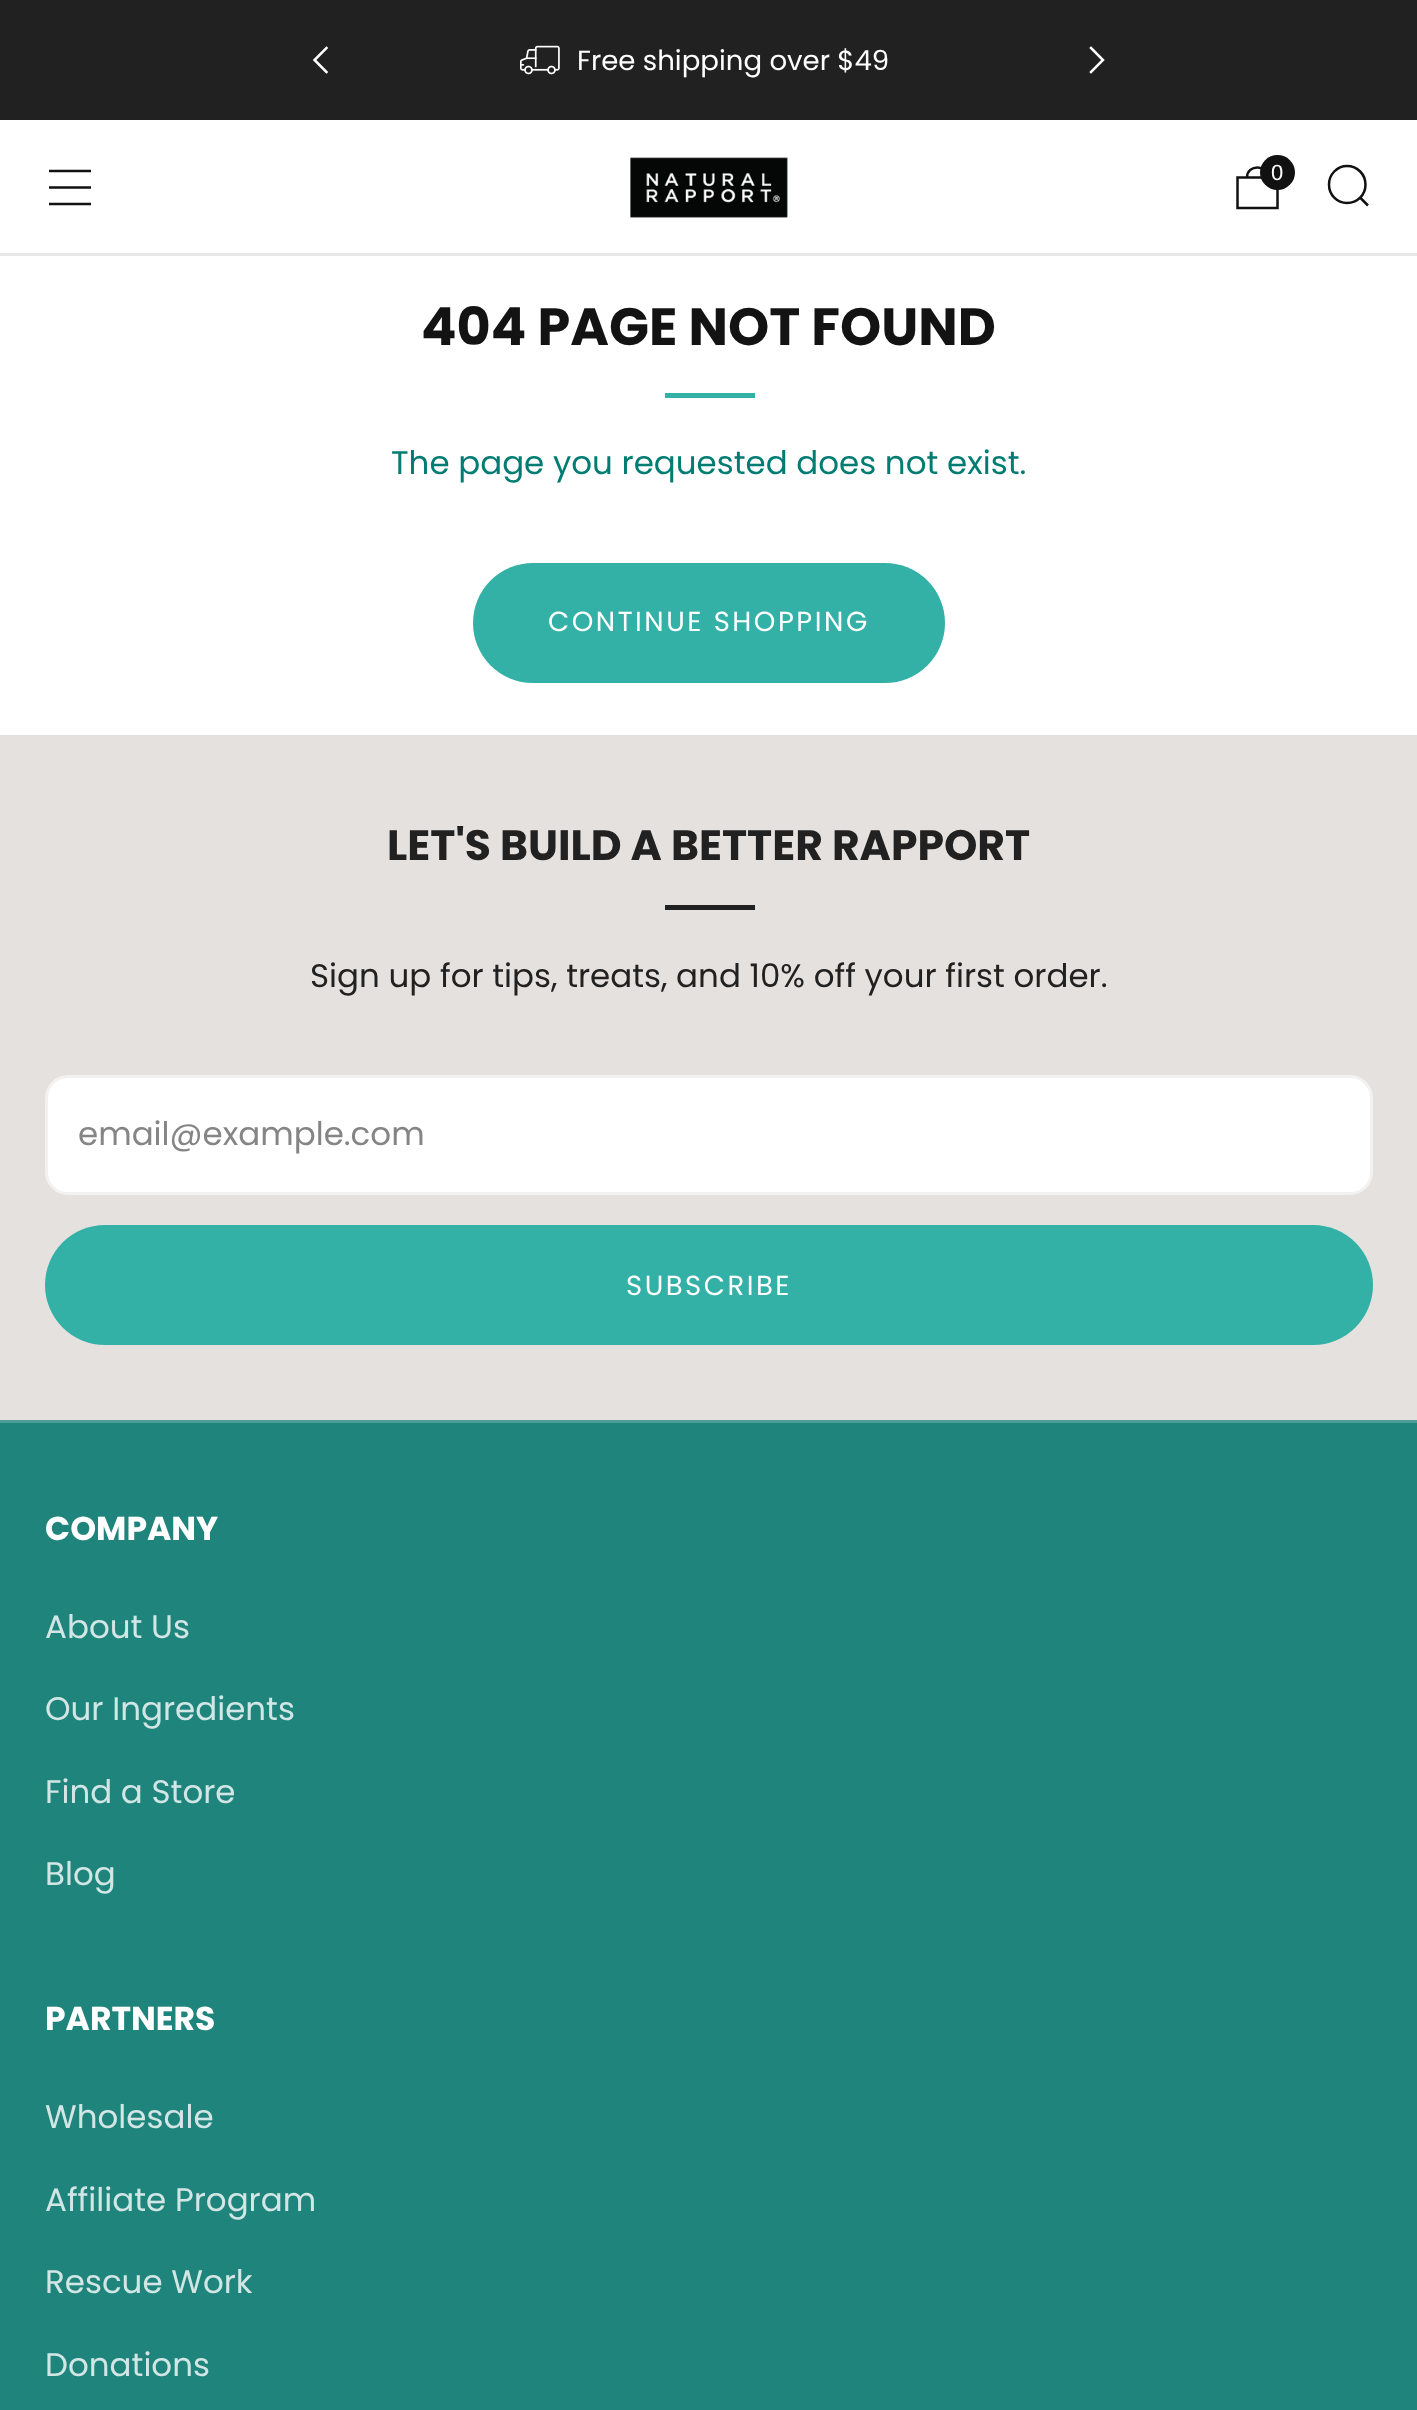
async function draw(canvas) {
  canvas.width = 1417
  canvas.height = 2410
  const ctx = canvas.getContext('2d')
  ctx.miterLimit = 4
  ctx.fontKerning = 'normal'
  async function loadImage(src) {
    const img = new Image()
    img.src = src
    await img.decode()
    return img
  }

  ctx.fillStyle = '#fff'
  ctx.fillRect(0, 0, 1417, 2410)
  ctx.fillStyle = '#212121'
  ctx.fillRect(0, 0, 1417, 120)
  ctx.beginPath()
  ctx.moveTo(326.5, 72)
  ctx.lineTo(314.5, 60)
  ctx.lineTo(326.5, 48)
  ctx.strokeStyle = '#fff'
  ctx.lineWidth = 2.5
  ctx.lineCap = 'square'
  ctx.stroke()
  ctx.drawImage(await loadImage('image0.png'), 520, 45, 40, 30)
  ctx.font = '27.6px Poppins'
  ctx.fillStyle = '#fff'
  ctx.fillText('Free shipping over $49', 577, 70)
  ctx.beginPath()
  ctx.moveTo(1091, 48)
  ctx.lineTo(1103, 60)
  ctx.lineTo(1091, 72)
  ctx.stroke()
  ctx.fillStyle = '#e7e7e7'
  ctx.fillRect(0, 253, 1417, 3)
  ctx.beginPath()
  ctx.moveTo(49, 171)
  ctx.lineTo(91, 171)
  ctx.moveTo(49, 187.5)
  ctx.lineTo(91, 187.5)
  ctx.moveTo(49, 204)
  ctx.lineTo(91, 204)
  ctx.strokeStyle = '#111'
  ctx.lineCap = 'butt'
  ctx.stroke()
  ctx.drawImage(await loadImage('image1.png'), 630, 157, 158, 61)
  ctx.beginPath()
  ctx.moveTo(1268, 177.5)
  ctx.bezierCurveTo(1268, 164, 1247, 164, 1247, 177.5)
  ctx.moveTo(1237.5, 177.5)
  ctx.lineTo(1277.5, 177.5)
  ctx.lineTo(1277.5, 208)
  ctx.lineTo(1237.5, 208)
  ctx.closePath()
  ctx.stroke()
  ctx.fillStyle = '#111'
  ctx.beginPath()
  ctx.arc(1277.5, 172.5, 17.5, 0, 2 * Math.PI)
  ctx.fill()
  ctx.font = '22px Liberation Sans'
  ctx.fillStyle = '#fff'
  ctx.fillText('0', 1271, 180)
  ctx.beginPath()
  ctx.moveTo(1360, 197.5)
  ctx.lineTo(1368, 205.5)
  ctx.moveTo(1365.5, 184.5)
  ctx.bezierCurveTo(1365.5, 195, 1357.5, 203, 1347, 203)
  ctx.bezierCurveTo(1337, 203, 1329, 195, 1329, 184.5)
  ctx.bezierCurveTo(1329, 174.5, 1337, 166, 1347, 166)
  ctx.bezierCurveTo(1357.5, 166, 1365.5, 174.5, 1365.5, 184.5)
  ctx.closePath()
  ctx.stroke()
  ctx.font = 'bold 52.5px Poppins'
  ctx.fillStyle = '#131313'
  ctx.fillText('404 PAGE NOT FOUND', 421, 345)
  ctx.fillStyle = '#34b1a7'
  ctx.fillRect(665, 393, 90, 5)
  ctx.font = '32.5px Poppins'
  ctx.fillStyle = '#007c73'
  ctx.fillText('The page you requested does not exist.', 391, 474)
  ctx.fillStyle = '#34b1a7'
  ctx.beginPath()
  ctx.roundRect(473, 563, 472, 120, 60)
  ctx.fill()
  ctx.letterSpacing = '2.5px'
  ctx.font = '27.5px Poppins'
  ctx.fillStyle = '#fff'
  ctx.fillText('CONTINUE SHOPPING', 548, 631)
  ctx.fillStyle = '#e5e1de'
  ctx.fillRect(0, 735, 1417, 685)
  ctx.letterSpacing = '0px'
  ctx.font = 'bold 42.5px Poppins'
  ctx.fillStyle = '#212121'
  ctx.fillText('LET\'S BUILD A BETTER RAPPORT', 387, 860)
  ctx.fillRect(665, 905, 90, 5)
  ctx.font = '32.5px Poppins'
  ctx.fillText('Sign up for tips, treats, and 10% off your first order.', 310, 987)
  ctx.fillStyle = '#fff'
  ctx.beginPath()
  ctx.roundRect(46.5, 1076.5, 1325, 117, 21.5)
  ctx.fill()
  ctx.strokeStyle = '#f2f2f2'
  ctx.lineWidth = 3
  ctx.stroke()
  ctx.fillStyle = '#858585'
  ctx.fillText('email@example.com', 78, 1145)
  ctx.fillStyle = '#34b1a7'
  ctx.beginPath()
  ctx.roundRect(45, 1225, 1328, 120, 60)
  ctx.fill()
  ctx.letterSpacing = '2.5px'
  ctx.font = '27.5px Poppins'
  ctx.fillStyle = '#fff'
  ctx.fillText('SUBSCRIBE', 626, 1295)
  ctx.fillStyle = '#1f847c'
  ctx.fillRect(0, 1423, 1417, 987)
  ctx.fillStyle = '#4c9d96'
  ctx.fillRect(0, 1420, 1417, 3)
  ctx.letterSpacing = '0px'
  ctx.font = 'bold 33px Poppins'
  ctx.fillStyle = '#fff'
  ctx.fillText('COMPANY', 45, 1540)
  ctx.font = '32.5px Poppins'
  ctx.fillStyle = '#d2e6e5'
  ctx.fillText('About Us', 45, 1638)
  ctx.fillText('Our Ingredients', 45, 1720)
  ctx.fillText('Find a Store', 45, 1803)
  ctx.fillText('Blog', 45, 1885)
  ctx.font = 'bold 33px Poppins'
  ctx.fillStyle = '#fff'
  ctx.fillText('PARTNERS', 45, 2030)
  ctx.font = '32.5px Poppins'
  ctx.fillStyle = '#d2e6e5'
  ctx.fillText('Wholesale', 45, 2128)
  ctx.fillText('Affiliate Program', 45, 2211)
  ctx.fillText('Rescue Work', 45, 2293)
  ctx.fillText('Donations', 45, 2376)
}

draw(document.querySelector('canvas'))
